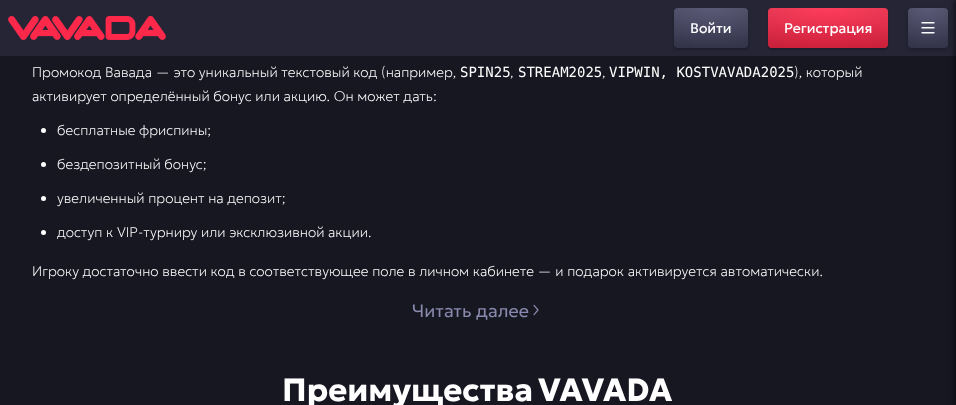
async function draw(canvas) {
  canvas.width = 956
  canvas.height = 405
  const ctx = canvas.getContext('2d')
  ctx.miterLimit = 4
  ctx.fontKerning = 'normal'
  async function loadImage(src) {
    const img = new Image()
    img.src = src
    await img.decode()
    return img
  }
  let gradient

  ctx.fillStyle = '#171722'
  ctx.fillRect(0, 0, 956, 405)
  ctx.fillStyle = '#252536'
  ctx.fillRect(0, 0, 956, 56)
  ctx.drawImage(await loadImage('image0.png'), 8, 16, 158, 24)
  ctx.fillStyle = '#0000003d'
  ctx.filter = 'blur(1px)'
  ctx.beginPath()
  ctx.roundRect(674, 10, 74, 40, 4)
  ctx.fill()
  ctx.filter = 'none'
  gradient = ctx.createRadialGradient(711, 14.8, 0, 711, 14.8, 74)
  gradient.addColorStop(0, '#484868')
  gradient.addColorStop(1, '#33334a')
  ctx.fillStyle = gradient
  ctx.beginPath()
  ctx.roundRect(674, 8, 74, 40, 4)
  ctx.save()
  ctx.clip()
  ctx.scale(1, 40 / 74)
  ctx.fillRect(0, 0, 956, 750)
  ctx.restore()
  gradient = ctx.createLinearGradient(711, 8, 711, 48)
  gradient.addColorStop(0, '#ffffff1a')
  gradient.addColorStop(1, '#ffffff00')
  ctx.fillStyle = gradient
  ctx.beginPath()
  ctx.roundRect(674, 8, 74, 40, 4)
  ctx.fill()
  ctx.font = '14px Geologica'
  ctx.fillStyle = '#fff'
  ctx.fillText('Войти', 690, 33)
  ctx.fillStyle = '#0000003d'
  ctx.filter = 'blur(1px)'
  ctx.beginPath()
  ctx.roundRect(768, 10, 120, 40, 4)
  ctx.fill()
  ctx.filter = 'none'
  gradient = ctx.createRadialGradient(828, 24, 0, 828, 24, 120)
  gradient.addColorStop(0, '#fe284a')
  gradient.addColorStop(1, '#cc203b')
  ctx.fillStyle = gradient
  ctx.beginPath()
  ctx.roundRect(768, 8, 120, 40, 4)
  ctx.save()
  ctx.clip()
  ctx.scale(1, 40 / 120)
  ctx.fillRect(0, 0, 956, 1215)
  ctx.restore()
  gradient = ctx.createLinearGradient(828, 8, 828, 48)
  gradient.addColorStop(0, '#ffffff1a')
  gradient.addColorStop(1, '#ffffff00')
  ctx.fillStyle = gradient
  ctx.beginPath()
  ctx.roundRect(768, 8, 120, 40, 4)
  ctx.fill()
  ctx.fillStyle = '#fff'
  ctx.fillText('Регистрация', 784, 33)
  ctx.fillStyle = '#0000003d'
  ctx.filter = 'blur(2px)'
  ctx.beginPath()
  ctx.roundRect(908, 10, 40, 40, 4)
  ctx.fill()
  ctx.filter = 'none'
  gradient = ctx.createRadialGradient(928, 8, 0, 928, 8, 40)
  gradient.addColorStop(0, '#484868')
  gradient.addColorStop(1, '#33334a')
  ctx.fillStyle = gradient
  ctx.beginPath()
  ctx.roundRect(908, 8, 40, 40, 4)
  ctx.fill()
  gradient = ctx.createLinearGradient(928, 8, 928, 48)
  gradient.addColorStop(0, '#ffffff1a')
  gradient.addColorStop(1, '#ffffff00')
  ctx.fillStyle = gradient
  ctx.beginPath()
  ctx.roundRect(908, 8, 40, 40, 4)
  ctx.fill()
  ctx.drawImage(await loadImage('image1.png'), 921, 22, 14, 12)
  ctx.fillStyle = '#00000080'
  ctx.filter = 'blur(2.5px)'
  ctx.beginPath()
  ctx.rect(954, 0, 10, 405)
  ctx.fill()
  ctx.filter = 'none'
  ctx.font = '100 14px Geologica'
  ctx.fillStyle = '#fff'
  ctx.fillText('Промокод Вавада — это уникальный текстовый код (например,', 32, 77)
  ctx.font = '14px DejaVu Sans Mono'
  ctx.fillText('SPIN25', 460, 77)
  ctx.font = '100 14px Geologica'
  ctx.fillText(',', 510, 77)
  ctx.font = '14px DejaVu Sans Mono'
  ctx.fillText('STREAM2025', 518, 77)
  ctx.font = '100 14px Geologica'
  ctx.fillText(',', 602, 77)
  ctx.font = '14px DejaVu Sans Mono'
  ctx.fillText('VIPWIN, KOSTVAVADA2025', 609, 77)
  ctx.font = '100 14px Geologica'
  ctx.fillText('), который', 794, 77)
  ctx.fillText('активирует определённый бонус или акцию. Он может дать:', 32, 101)
  ctx.beginPath()
  ctx.arc(43.5, 130.5, 2.5, 0, 2 * Math.PI)
  ctx.fill()
  ctx.fillText('бесплатные фриспины;', 57, 135)
  ctx.beginPath()
  ctx.arc(43.5, 164.5, 2.5, 0, 2 * Math.PI)
  ctx.fill()
  ctx.fillText('бездепозитный бонус;', 57, 169)
  ctx.beginPath()
  ctx.arc(43.5, 198.5, 2.5, 0, 2 * Math.PI)
  ctx.fill()
  ctx.fillText('увеличенный процент на депозит;', 57, 203)
  ctx.beginPath()
  ctx.arc(43.5, 232.5, 2.5, 0, 2 * Math.PI)
  ctx.fill()
  ctx.fillText('доступ к VIP-турниру или эксклюзивной акции.', 57, 237)
  ctx.fillText('Игроку достаточно ввести код в соответствующее поле в личном кабинете — и подарок активируется автоматически.', 32, 276)
  ctx.font = '300 18px Geologica'
  ctx.fillStyle = '#8a8aae'
  ctx.fillText('Читать далее', 412, 317)
  ctx.drawImage(await loadImage('image2.png'), 533, 304, 6, 12)
  ctx.wordSpacing = '-2px'
  ctx.font = 'bold 32px Geologica'
  ctx.fillStyle = '#fff'
  ctx.fillText('Преимущества VAVADA', 282, 401)
}

draw(document.querySelector('canvas'))
